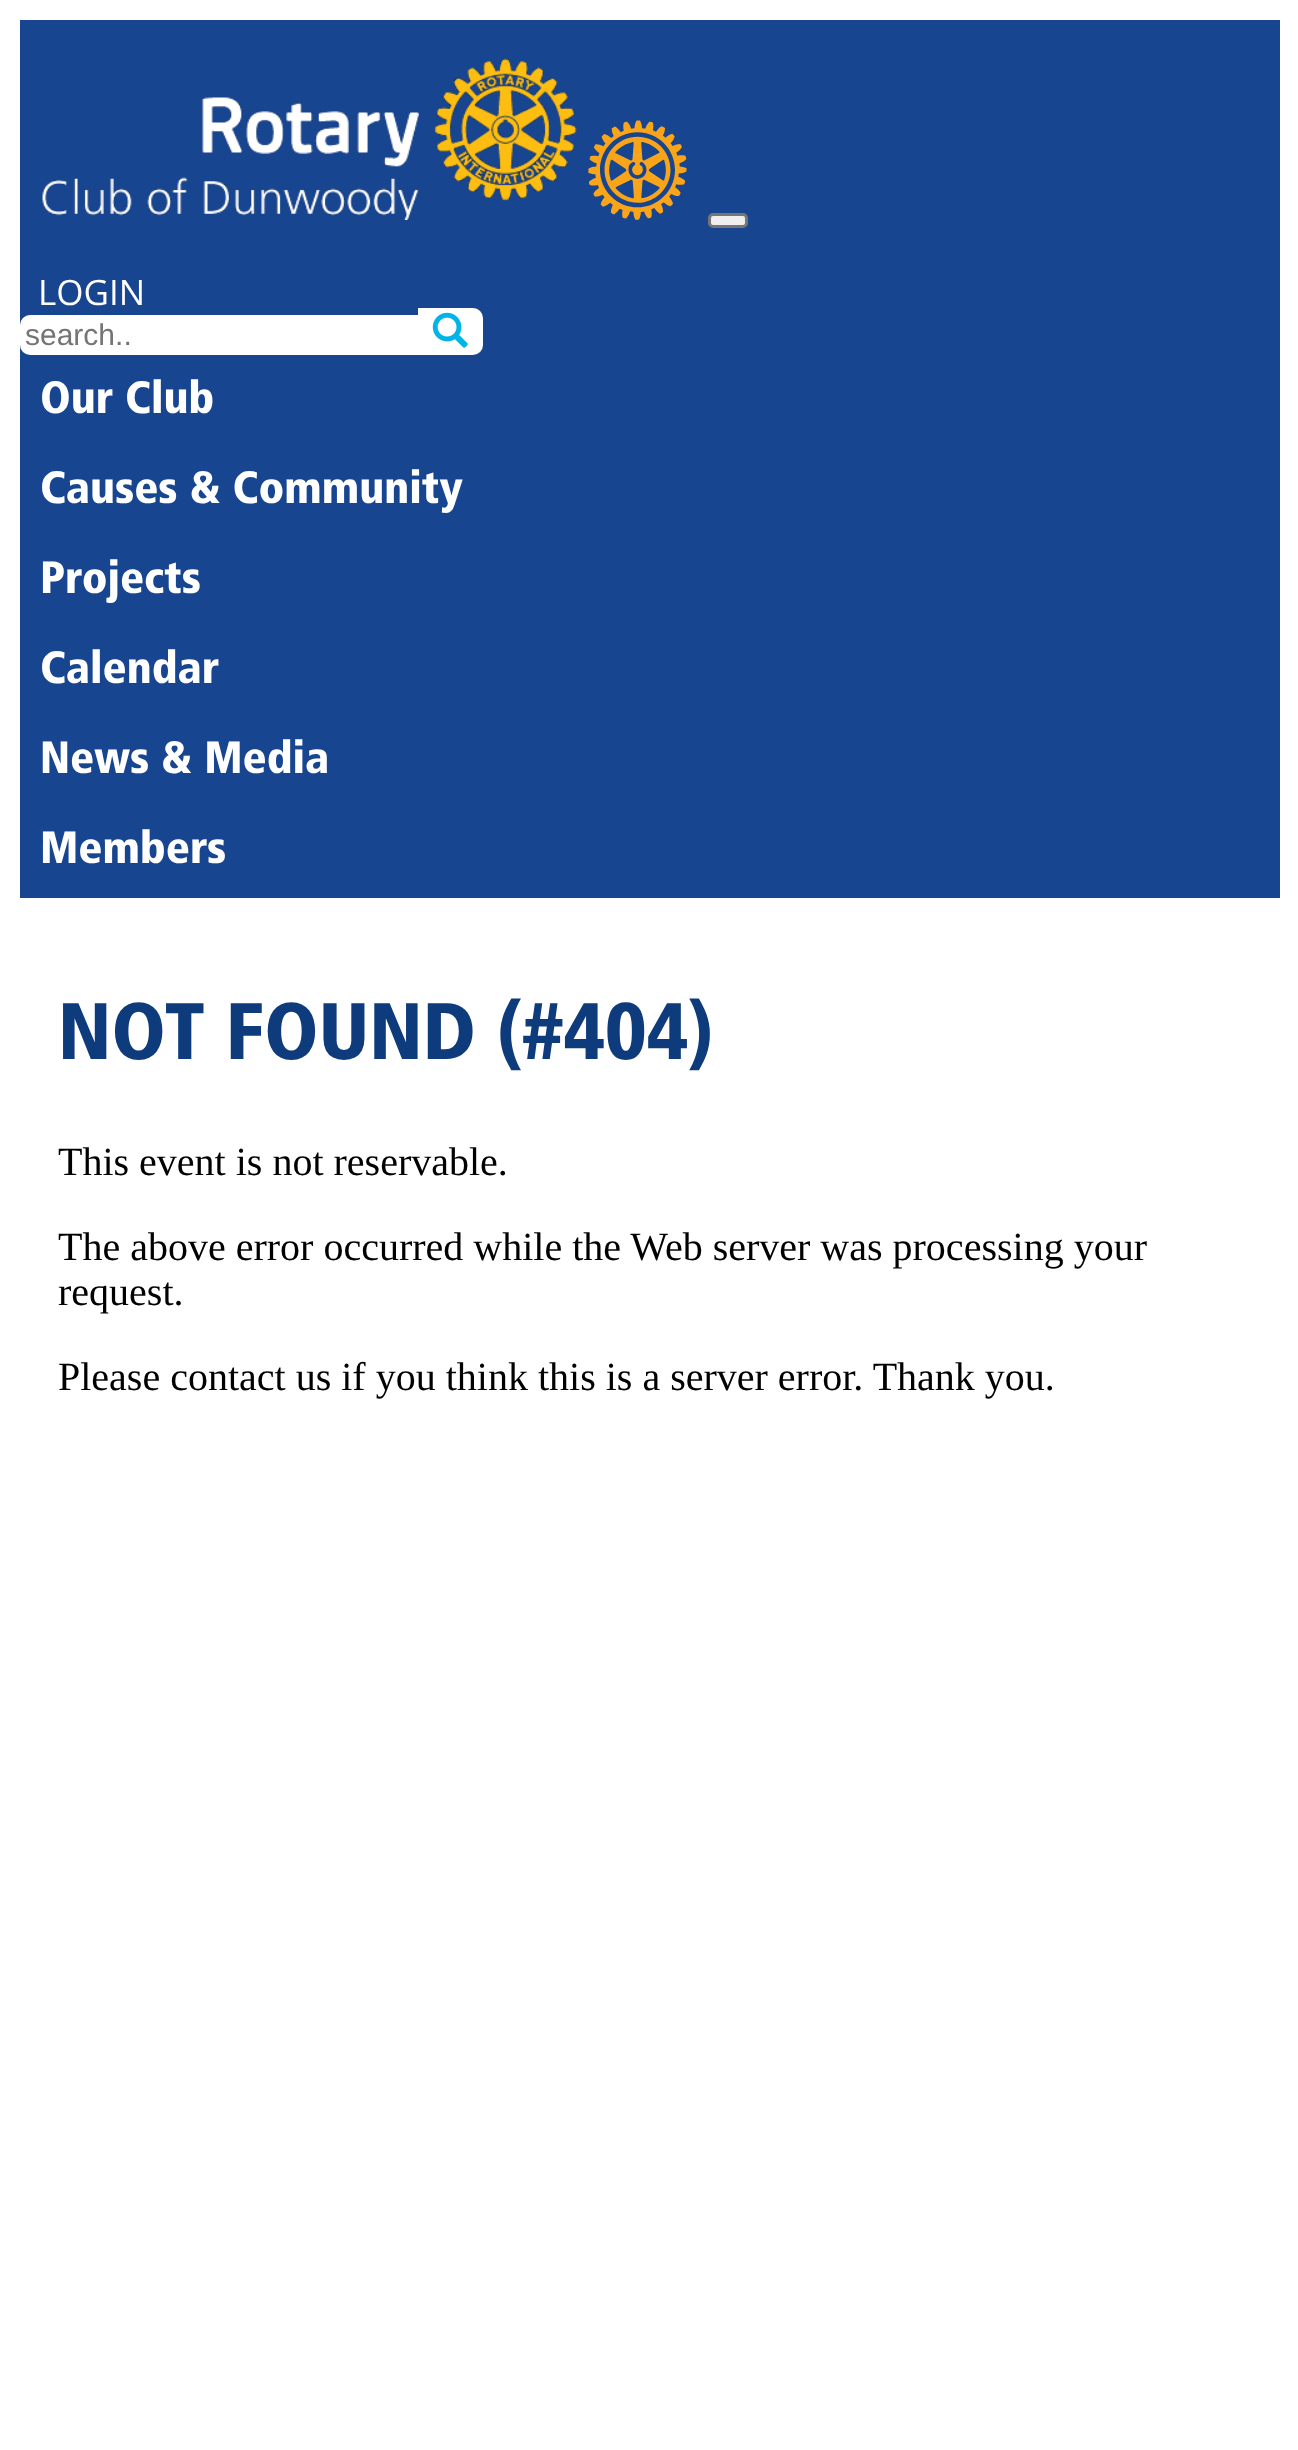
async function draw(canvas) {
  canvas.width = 1298
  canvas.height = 2450
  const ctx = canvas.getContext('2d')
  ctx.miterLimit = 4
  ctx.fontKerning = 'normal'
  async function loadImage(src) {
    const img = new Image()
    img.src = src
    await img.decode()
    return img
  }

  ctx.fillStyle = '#fff'
  ctx.fillRect(0, 0, 1298, 2450)
  ctx.fillStyle = '#17458f'
  ctx.fillRect(20, 20, 1260, 878)
  ctx.drawImage(await loadImage('image0.png'), 42, 58, 535, 162)
  ctx.drawImage(await loadImage('image1.png'), 588, 120, 99, 100)
  ctx.fillStyle = '#efefef'
  ctx.beginPath()
  ctx.roundRect(709.5, 214.5, 37, 12, 3.5)
  ctx.fill()
  ctx.strokeStyle = '#767676'
  ctx.lineWidth = 3
  ctx.stroke()
  ctx.font = '35px Open Sans'
  ctx.fillStyle = '#fff'
  ctx.fillText('LOGIN', 38, 305)
  ctx.beginPath()
  ctx.roundRect(20, 315, 398, 40, [10, 0, 0, 10])
  ctx.fill()
  ctx.font = '30px Liberation Sans'
  ctx.fillStyle = '#757575'
  ctx.fillText('search..', 25, 345)
  ctx.fillStyle = '#fff'
  ctx.beginPath()
  ctx.roundRect(418, 308, 65, 47, [0, 10, 10, 0])
  ctx.fill()
  ctx.drawImage(await loadImage('image2.png'), 432, 312, 36, 36)
  ctx.font = '900 45px Frutiger'
  ctx.fillText('Our Club', 40, 413)
  ctx.fillText('Causes & Community', 40, 503)
  ctx.fillText('Projects', 40, 593)
  ctx.fillText('Calendar', 40, 683)
  ctx.fillText('News & Media', 40, 773)
  ctx.fillText('Members', 40, 863)
  ctx.font = '900 80px Frutiger'
  ctx.fillStyle = '#0d3b7c'
  ctx.fillText('NOT FOUND (#404)', 58, 1059)
  ctx.font = '40px Liberation Serif'
  ctx.fillStyle = '#000'
  ctx.fillText('This event is not reservable.', 58, 1175)
  ctx.fillText('The above error occurred while the Web server was processing your', 58, 1260)
  ctx.fillText('request.', 58, 1305)
  ctx.fillText('Please contact us if you think this is a server error. Thank you.', 58, 1390)
}

draw(document.querySelector('canvas'))
